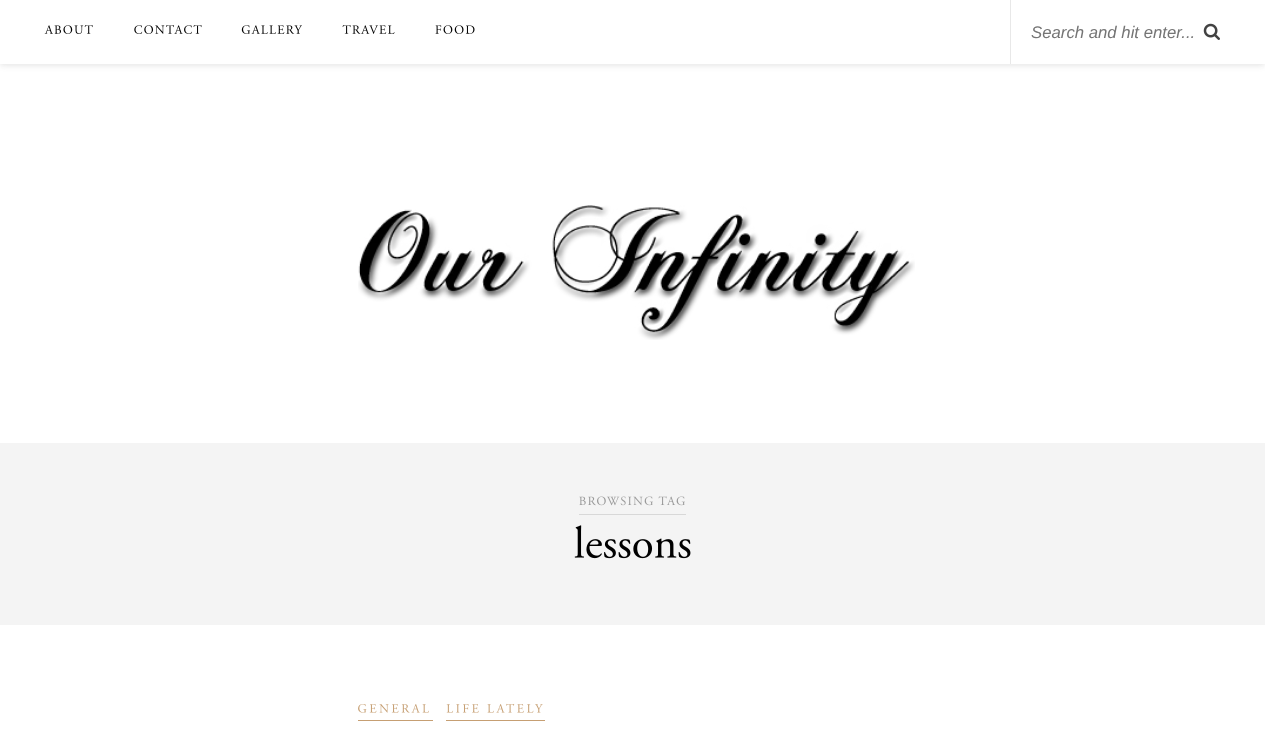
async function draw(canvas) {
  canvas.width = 1265
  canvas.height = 737
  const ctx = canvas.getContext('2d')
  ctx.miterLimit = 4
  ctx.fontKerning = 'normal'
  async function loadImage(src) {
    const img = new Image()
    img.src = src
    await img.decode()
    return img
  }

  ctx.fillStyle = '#fff'
  ctx.fillRect(0, 0, 1265, 737)
  ctx.fillStyle = '#bebebe75'
  ctx.filter = 'blur(3px)'
  ctx.beginPath()
  ctx.rect(0, 1, 1265, 64)
  ctx.fill()
  ctx.filter = 'none'
  ctx.fillStyle = '#fff'
  ctx.fillRect(0, 0, 1265, 64)
  ctx.drawImage(await loadImage('image0.png'), 44, 25, 49, 9)
  ctx.drawImage(await loadImage('image1.png'), 134, 25, 68, 9)
  ctx.drawImage(await loadImage('image2.png'), 241, 25, 61, 9)
  ctx.drawImage(await loadImage('image3.png'), 342, 25, 53, 9)
  ctx.drawImage(await loadImage('image4.png'), 435, 25, 40, 9)
  ctx.fillStyle = '#e8e8e8'
  ctx.fillRect(1010, 0, 1, 64)
  ctx.font = 'italic 16.75px Liberation Sans'
  ctx.fillStyle = '#757575'
  ctx.fillText('Search and hit enter...', 1031, 38)
  ctx.drawImage(await loadImage('image5.png'), 1203, 23, 17, 17)
  ctx.drawImage(await loadImage('image6.png'), 358, 205, 557, 135)
  ctx.fillStyle = '#f4f4f4'
  ctx.fillRect(0, 443, 1265, 182)
  ctx.fillStyle = '#d8d8d8'
  ctx.fillRect(579, 514, 107, 1)
  ctx.drawImage(await loadImage('image7.png'), 579, 496, 106, 10)
  ctx.drawImage(await loadImage('image8.png'), 574, 525, 117, 34)
  ctx.fillStyle = '#c69f73'
  ctx.fillRect(358, 720, 75, 1)
  ctx.drawImage(await loadImage('image9.png'), 358, 704, 71, 9)
  ctx.fillRect(446, 720, 99, 1)
  ctx.drawImage(await loadImage('image10.png'), 446, 703, 97, 10)
}

draw(document.querySelector('canvas'))
